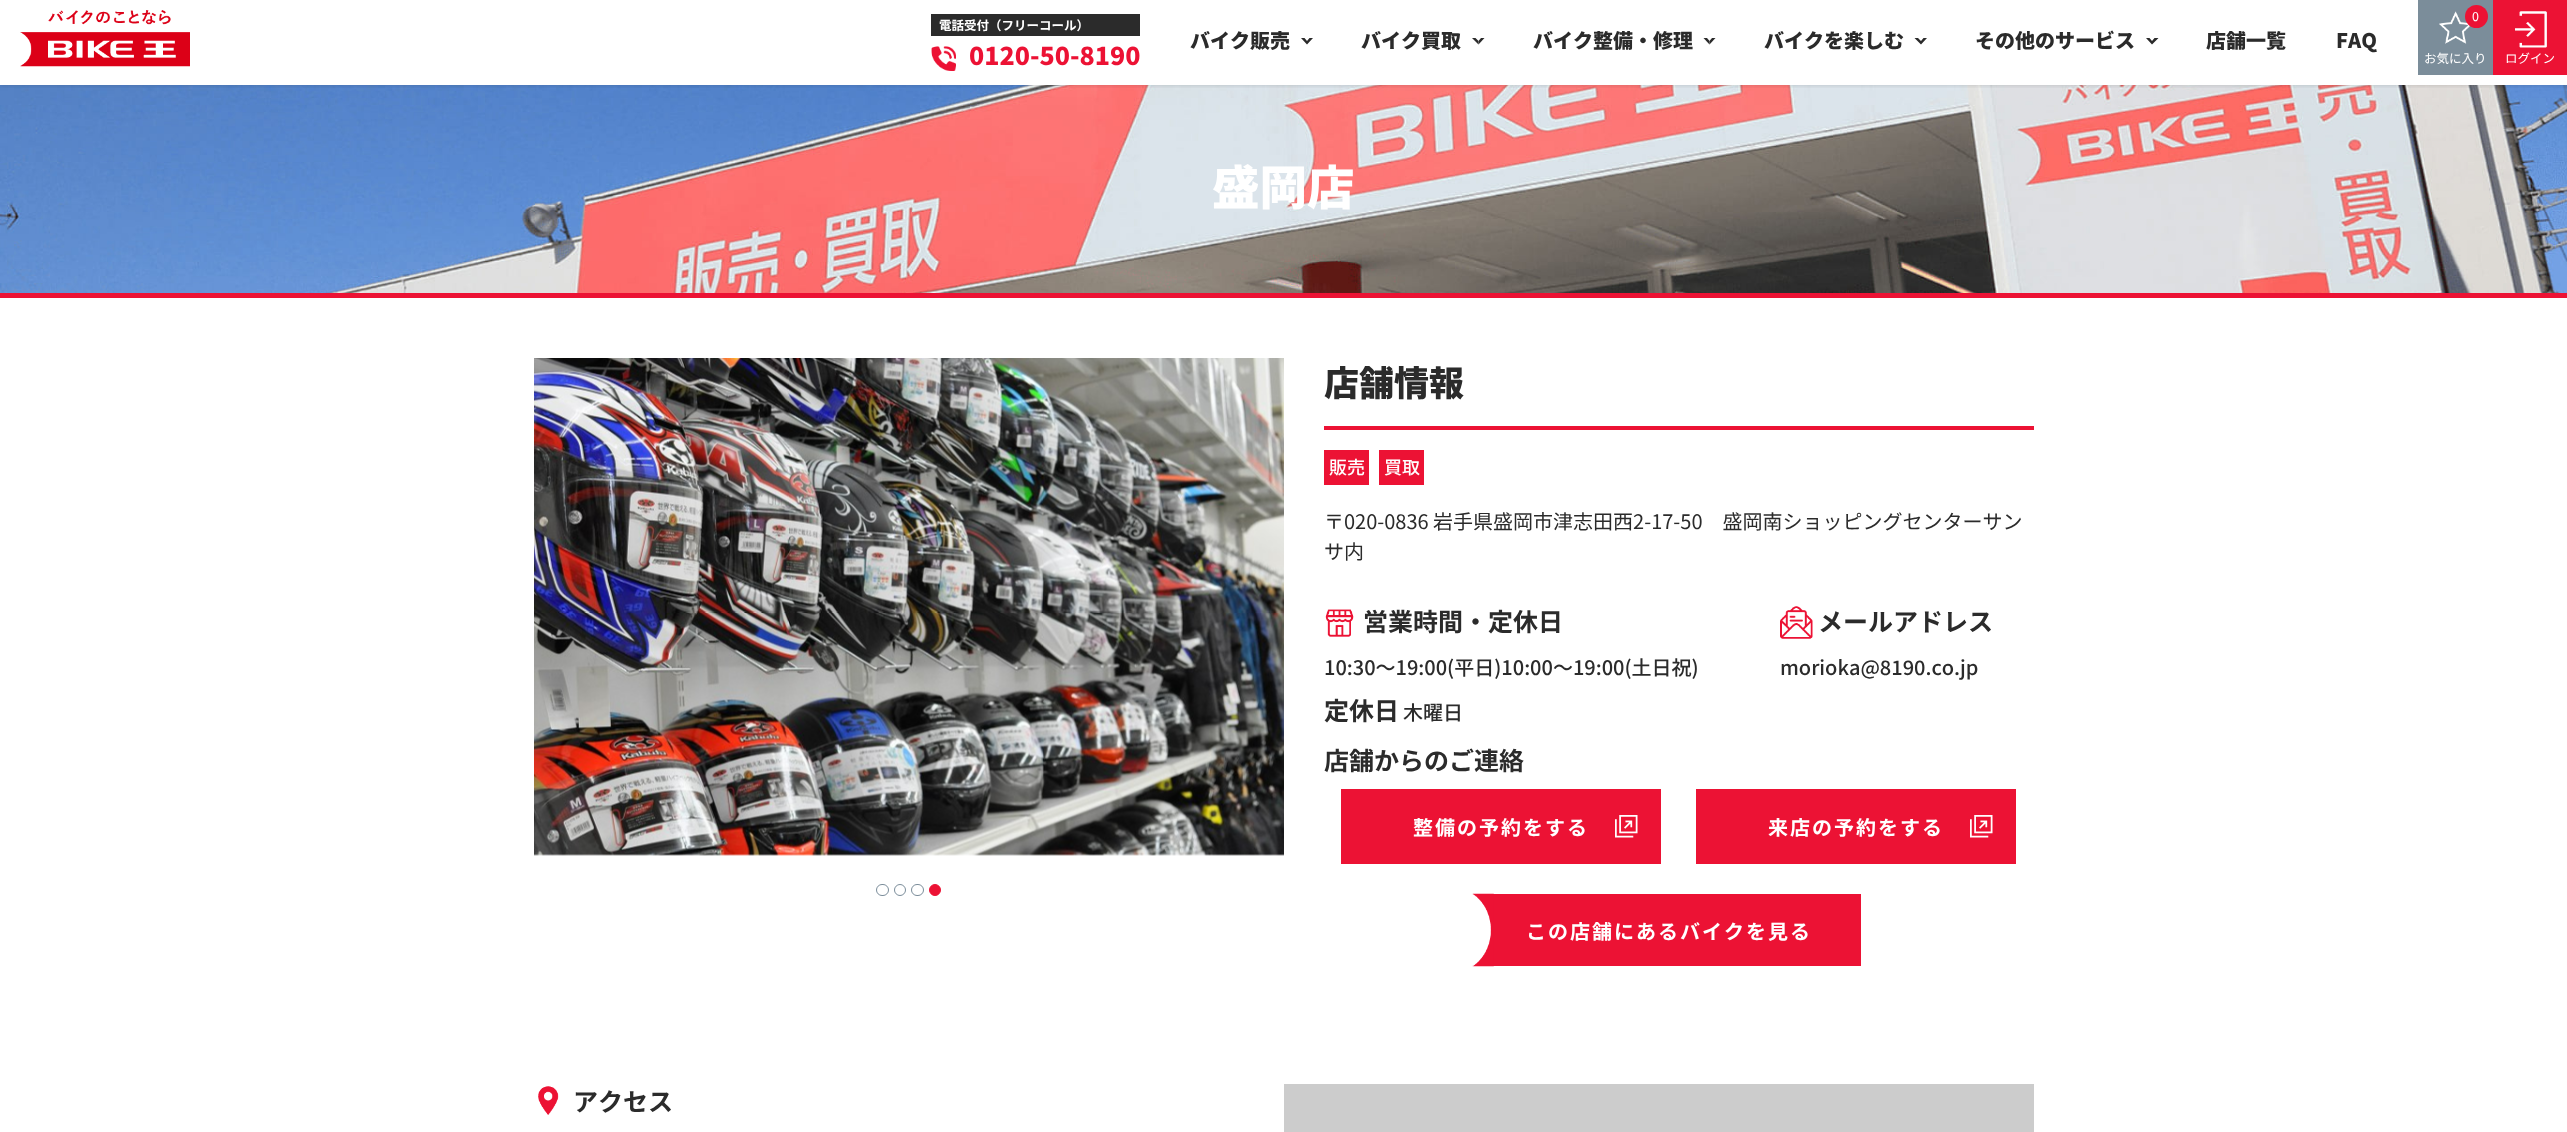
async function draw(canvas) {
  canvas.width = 2567
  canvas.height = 1132
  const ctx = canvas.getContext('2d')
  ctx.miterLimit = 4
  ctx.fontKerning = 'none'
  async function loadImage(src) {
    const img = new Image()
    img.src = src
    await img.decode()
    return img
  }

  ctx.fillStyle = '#fff'
  ctx.fillRect(0, 0, 2567, 1132)
  ctx.drawImage(await loadImage('image4.png'), 0, 85, 2567, 208)
  ctx.save()
  ctx.beginPath()
  ctx.rect(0, 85, 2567, 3)
  ctx.clip()
  ctx.fillStyle = '#00000029'
  ctx.filter = 'blur(2.5px)'
  ctx.beginPath()
  ctx.rect(0, 0, 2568, 85)
  ctx.fill()
  ctx.filter = 'none'
  ctx.restore()
  ctx.drawImage(await loadImage('image0.png'), 20, 10, 170, 57)
  ctx.fillStyle = '#2b2b2b'
  ctx.fillRect(931, 14, 209, 22)
  ctx.font = 'bold 12.5px Noto Sans JP'
  ctx.fillStyle = '#fff'
  ctx.fillText('電話受付（フリーコール）', 939, 30)
  ctx.drawImage(await loadImage('image1.png'), 931, 46, 25, 25)
  ctx.font = '900 25px Noto Sans JP'
  ctx.fillStyle = '#ec1234'
  ctx.fillText('0120-50-8190', 969, 65)
  ctx.font = '900 20px Noto Sans JP'
  ctx.fillStyle = '#2b2b2b'
  ctx.fillText('バイク販売', 1190, 48)
  ctx.beginPath()
  ctx.moveTo(1313, 38)
  ctx.lineTo(1307, 44.5)
  ctx.lineTo(1307, 41)
  ctx.lineTo(1309.5, 38)
  ctx.closePath()
  ctx.moveTo(1307, 44.5)
  ctx.lineTo(1301, 38)
  ctx.lineTo(1304.5, 38)
  ctx.lineTo(1307, 41)
  ctx.closePath()
  ctx.fill()
  ctx.fillText('バイク買取', 1361, 48)
  ctx.beginPath()
  ctx.moveTo(1484.5, 38)
  ctx.lineTo(1478.5, 44.5)
  ctx.lineTo(1478.5, 41)
  ctx.lineTo(1481, 38)
  ctx.closePath()
  ctx.fill()
  ctx.beginPath()
  ctx.moveTo(1478.5, 44.5)
  ctx.lineTo(1472, 38)
  ctx.lineTo(1475.5, 38)
  ctx.lineTo(1478.5, 41)
  ctx.closePath()
  ctx.fill()
  ctx.fillText('バイク整備・修理', 1533, 48)
  ctx.beginPath()
  ctx.moveTo(1715.5, 38)
  ctx.lineTo(1709.5, 44.5)
  ctx.lineTo(1709.5, 41)
  ctx.lineTo(1712, 38)
  ctx.closePath()
  ctx.fill()
  ctx.beginPath()
  ctx.moveTo(1709.5, 44.5)
  ctx.lineTo(1703.5, 38)
  ctx.lineTo(1707, 38)
  ctx.lineTo(1709.5, 41)
  ctx.closePath()
  ctx.fill()
  ctx.fillText('バイクを楽しむ', 1764, 48)
  ctx.beginPath()
  ctx.moveTo(1927, 38)
  ctx.lineTo(1921, 44.5)
  ctx.lineTo(1921, 41)
  ctx.lineTo(1923.5, 38)
  ctx.closePath()
  ctx.moveTo(1921, 44.5)
  ctx.lineTo(1914.5, 38)
  ctx.lineTo(1918, 38)
  ctx.lineTo(1921, 41)
  ctx.closePath()
  ctx.fill()
  ctx.fillText('その他のサービス', 1975, 48)
  ctx.beginPath()
  ctx.moveTo(2158.5, 38)
  ctx.lineTo(2152, 44.5)
  ctx.lineTo(2152, 41)
  ctx.lineTo(2154.5, 38)
  ctx.closePath()
  ctx.moveTo(2152, 44.5)
  ctx.lineTo(2146, 38)
  ctx.lineTo(2149.5, 38)
  ctx.lineTo(2152, 41)
  ctx.closePath()
  ctx.fill()
  ctx.fillText('店舗一覧', 2206, 48)
  ctx.fillText('FAQ', 2336, 48)
  ctx.fillStyle = '#7b8d9a'
  ctx.fillRect(2418, 0, 75, 75)
  ctx.drawImage(await loadImage('image2.png'), 2439, 11, 31, 33)
  ctx.fillStyle = '#ec1234'
  ctx.beginPath()
  ctx.arc(2476.5, 16.5, 11.5, 0, 2 * Math.PI)
  ctx.fill()
  ctx.font = '12.5px Noto Sans JP'
  ctx.fillStyle = '#fff'
  ctx.fillText('0', 2472, 21)
  ctx.fillText('お気に入り', 2424, 63)
  ctx.fillStyle = '#ec1234'
  ctx.fillRect(2493, 0, 74, 75)
  ctx.drawImage(await loadImage('image3.png'), 2515, 11, 32, 37)
  ctx.fillStyle = '#fff'
  ctx.fillText('ログイン', 2505, 63)
  ctx.fillStyle = '#ec1234'
  ctx.fillRect(0, 293, 2567, 5)
  ctx.font = '900 47.5px Noto Sans JP'
  ctx.fillStyle = '#fff'
  ctx.fillText('盛岡店', 1212, 205)
  ctx.drawImage(await loadImage('image5.png'), 534, 358, 750, 498)
  ctx.beginPath()
  ctx.roundRect(876.5, 884.5, 12, 11, 5.5)
  ctx.strokeStyle = '#7b8d9a'
  ctx.stroke()
  ctx.beginPath()
  ctx.arc(900, 890, 5.5, 0, 2 * Math.PI)
  ctx.stroke()
  ctx.beginPath()
  ctx.roundRect(911.5, 884.5, 12, 11, 5.5)
  ctx.stroke()
  ctx.fillStyle = '#ec1234'
  ctx.beginPath()
  ctx.arc(935, 890, 5.5, 0, 2 * Math.PI)
  ctx.fill()
  ctx.strokeStyle = '#ec1234'
  ctx.stroke()
  ctx.fillRect(1324, 426, 710, 4)
  ctx.font = '900 35px Noto Sans JP'
  ctx.fillStyle = '#2b2b2b'
  ctx.fillText('店舗情報', 1324, 396)
  ctx.fillStyle = '#ec1234'
  ctx.fillRect(1324, 450, 45, 35)
  ctx.font = '500 18px Noto Sans JP'
  ctx.fillStyle = '#fff'
  ctx.fillText('販売', 1329, 474)
  ctx.fillStyle = '#ec1234'
  ctx.fillRect(1379, 450, 45, 35)
  ctx.fillStyle = '#fff'
  ctx.fillText('買取', 1384, 474)
  ctx.font = '20px Noto Sans JP'
  ctx.fillStyle = '#2b2b2b'
  ctx.fillText('〒020-0836 岩手県盛岡市津志田西2-17-50　盛岡南ショッピングセンターサン', 1324, 529)
  ctx.fillText('サ内', 1324, 559)
  ctx.drawImage(await loadImage('image6.png'), 1325, 609, 29, 28)
  ctx.font = 'bold 25px Noto Sans JP'
  ctx.fillText('営業時間・定休日', 1363, 631)
  ctx.font = '500 20px Noto Sans JP'
  ctx.fillText('10:30～19:00(平日)10:00～19:00(土日祝)', 1324, 675)
  ctx.drawImage(await loadImage('image7.png'), 1780, 606, 33, 33)
  ctx.font = 'bold 25px Noto Sans JP'
  ctx.fillText('メールアドレス', 1818, 631)
  ctx.font = '500 20px Noto Sans JP'
  ctx.fillText('morioka@8190.co.jp', 1780, 675)
  ctx.font = 'bold 25px Noto Sans JP'
  ctx.fillText('定休日', 1324, 720)
  ctx.font = '500 20px Noto Sans JP'
  ctx.fillText('木曜日', 1403, 720)
  ctx.font = 'bold 25px Noto Sans JP'
  ctx.fillText('店舗からのご連絡', 1324, 770)
  ctx.fillStyle = '#ec1234'
  ctx.fillRect(1341, 789, 320, 75)
  ctx.letterSpacing = '2px'
  ctx.font = 'bold 20px Noto Sans JP'
  ctx.fillStyle = '#fff'
  ctx.fillText('整備の予約をする', 1413, 835)
  ctx.drawImage(await loadImage('image8.png'), 1615, 815, 23, 23)
  ctx.fillStyle = '#ec1234'
  ctx.fillRect(1696, 789, 320, 75)
  ctx.fillStyle = '#fff'
  ctx.fillText('来店の予約をする', 1768, 835)
  ctx.drawImage(await loadImage('image8.png'), 1970, 815, 23, 23)
  ctx.fillStyle = '#ec1234'
  ctx.fillRect(1491, 894, 370, 72)
  ctx.drawImage(await loadImage('image9.png'), 1472, 893, 22, 74)
  ctx.fillStyle = '#fff'
  ctx.fillText('この店舗にあるバイクを見る', 1526, 939)
  ctx.drawImage(await loadImage('image10.png'), 538, 1086, 21, 29)
  ctx.letterSpacing = '0px'
  ctx.font = 'bold 25px Noto Sans JP'
  ctx.fillStyle = '#2b2b2b'
  ctx.fillText('アクセス', 573, 1111)
  ctx.fillStyle = '#ccc'
  ctx.fillRect(1284, 1084, 750, 48)
}

draw(document.querySelector('canvas'))
